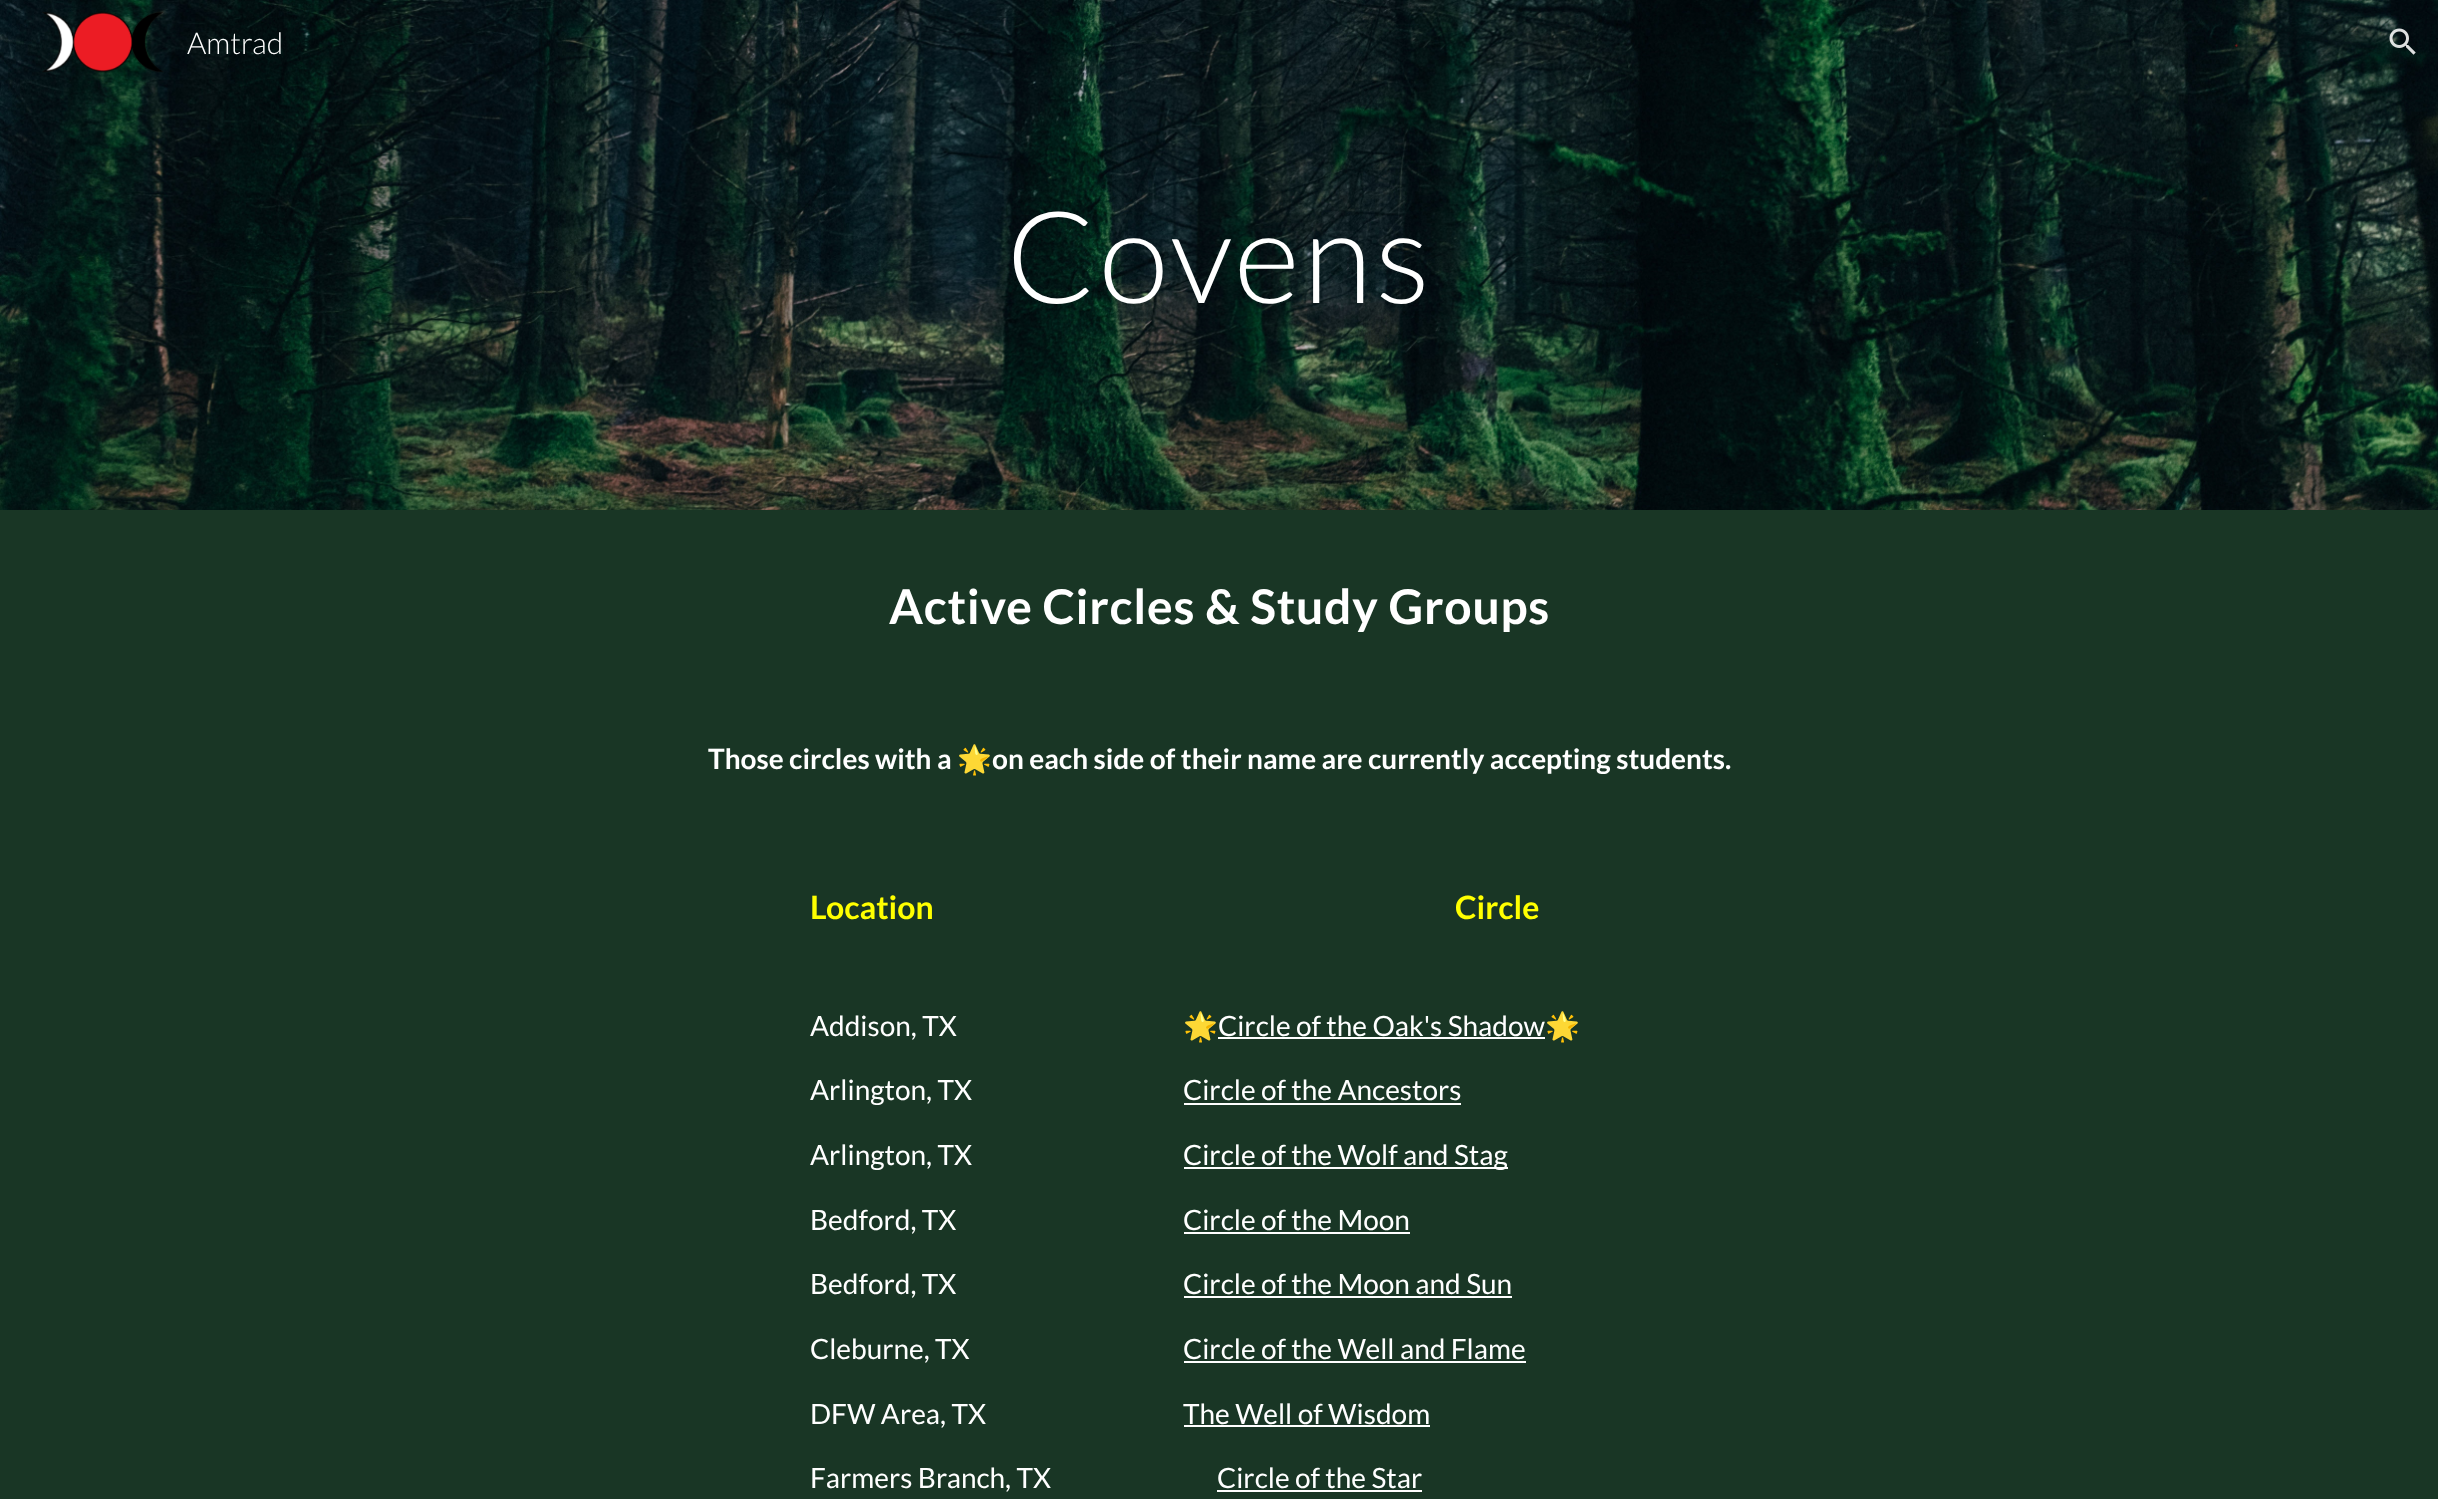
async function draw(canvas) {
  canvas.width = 2438
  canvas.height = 1499
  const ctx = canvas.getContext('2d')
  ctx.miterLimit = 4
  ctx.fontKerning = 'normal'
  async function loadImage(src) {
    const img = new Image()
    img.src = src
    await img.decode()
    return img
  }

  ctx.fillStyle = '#fff'
  ctx.fillRect(0, 0, 2438, 1499)
  ctx.drawImage(await loadImage('image2.png'), 0, 0, 2438, 510)
  ctx.drawImage(await loadImage('image0.png'), 42, 11, 122, 62)
  ctx.font = '300 30px Lato'
  ctx.fillText('Amtrad', 187, 54)
  ctx.drawImage(await loadImage('image1.png'), 2389, 28, 27, 27)
  ctx.letterSpacing = '3px'
  ctx.font = '300 128px Lato'
  ctx.fillText('Covens', 1006, 303)
  ctx.fillStyle = '#193625'
  ctx.fillRect(0, 510, 2438, 989)
  ctx.letterSpacing = '0.75px'
  ctx.font = 'bold 48px Lato'
  ctx.fillStyle = '#fff'
  ctx.fillText('Active Circles & Study Groups', 889, 624)
  ctx.letterSpacing = '0px'
  ctx.font = 'bold 28px Lato'
  ctx.fillText('Those circles with a', 708, 769)
  ctx.font = 'bold 28px Noto Color Emoji'
  ctx.fillText('🌟', 957, 769)
  ctx.font = 'bold 28px Lato'
  ctx.fillText('on each side of their name are currently accepting students.', 992, 769)
  ctx.font = 'bold 32px Lato'
  ctx.fillStyle = '#ff0'
  ctx.fillText('Location', 810, 919)
  ctx.fillText('Circle', 1455, 919)
  ctx.font = '28px Lato'
  ctx.fillStyle = '#fff'
  ctx.fillText('Addison, TX', 810, 1036)
  ctx.font = '28px Noto Color Emoji'
  ctx.fillText('🌟', 1183, 1036)
  ctx.font = '28px Lato'
  ctx.fillText('Circle of the Oak\'s Shadow', 1218, 1036)
  ctx.fillRect(1218, 1037, 327, 2)
  ctx.font = '28px Noto Color Emoji'
  ctx.fillText('🌟', 1545, 1036)
  ctx.font = '28px Lato'
  ctx.fillText('Arlington, TX', 810, 1100)
  ctx.fillText('Circle of the Ancestors', 1183, 1100)
  ctx.fillRect(1184, 1103, 277, 2)
  ctx.fillText('Arlington, TX', 810, 1165)
  ctx.fillRect(1184, 1167, 324, 2)
  ctx.fillText('Circle of the Wolf and Stag', 1183, 1165)
  ctx.fillText('Bedford, TX', 810, 1230)
  ctx.fillText('Circle of the Moon', 1183, 1230)
  ctx.fillRect(1184, 1232, 226, 2)
  ctx.fillText('Bedford, TX', 810, 1294)
  ctx.fillText('Circle of the Moon and Sun', 1183, 1294)
  ctx.fillRect(1184, 1296, 328, 2)
  ctx.fillText('Cleburne, TX', 810, 1359)
  ctx.fillText('Circle of the Well and Flame', 1183, 1359)
  ctx.fillRect(1184, 1361, 342, 2)
  ctx.fillText('DFW Area, TX', 810, 1424)
  ctx.fillText('The Well of Wisdom', 1183, 1424)
  ctx.fillRect(1184, 1425, 246, 2)
  ctx.fillText('Farmers Branch, TX', 810, 1488)
  ctx.fillText('Circle of the Star', 1217, 1488)
  ctx.fillRect(1217, 1490, 205, 2)
}

draw(document.querySelector('canvas'))
